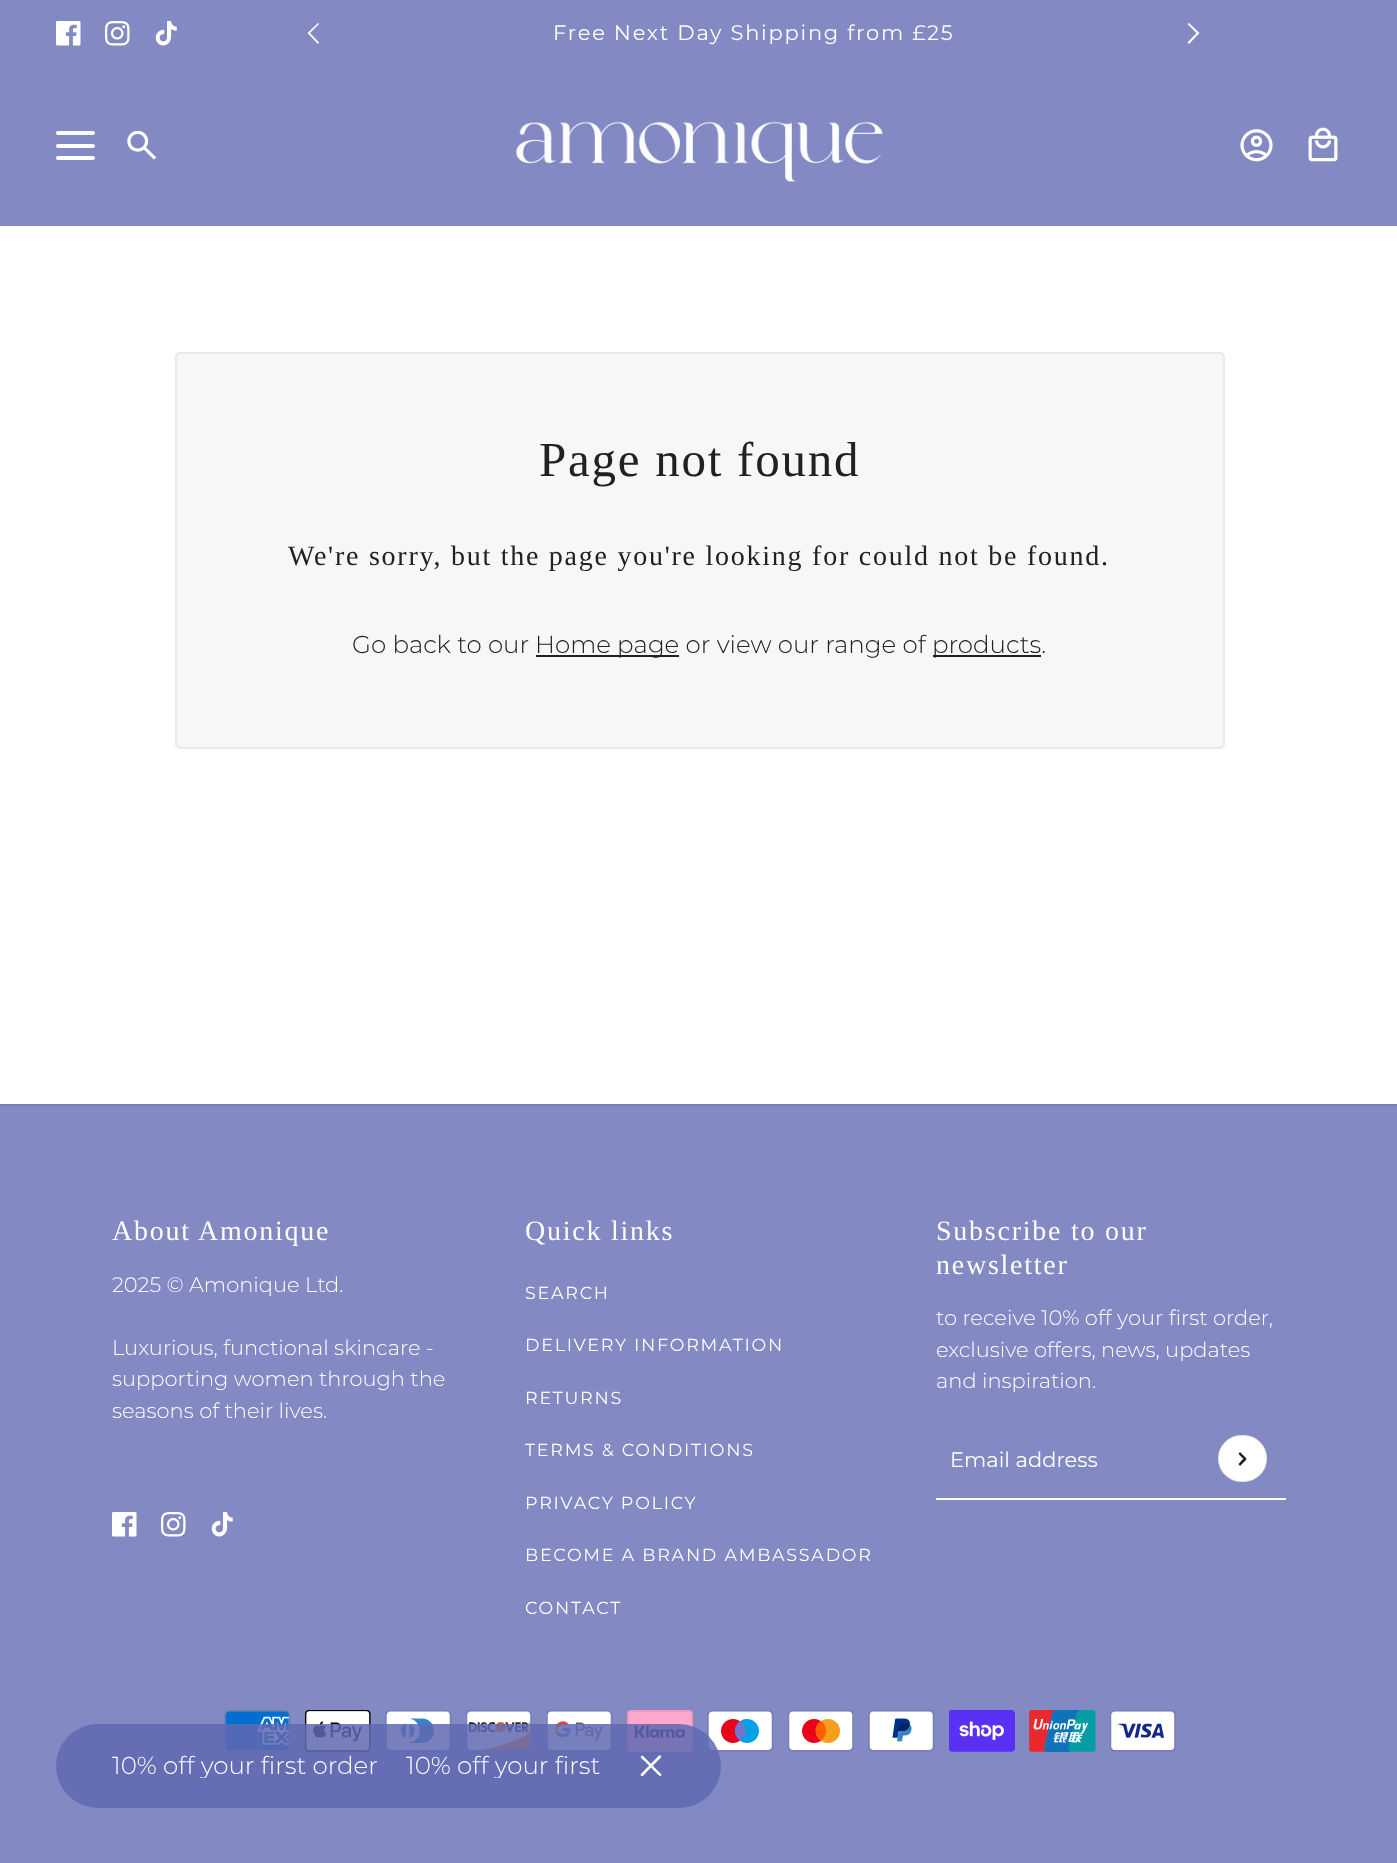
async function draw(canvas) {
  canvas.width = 1397
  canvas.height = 1863
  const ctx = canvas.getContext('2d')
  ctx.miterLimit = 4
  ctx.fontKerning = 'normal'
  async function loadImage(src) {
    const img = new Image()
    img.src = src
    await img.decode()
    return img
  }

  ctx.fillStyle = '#fff'
  ctx.fillRect(0, 0, 1397, 1863)
  ctx.fillStyle = '#8289c3'
  ctx.fillRect(0, 0, 1397, 226)
  ctx.drawImage(await loadImage('image0.png'), 56, 21, 25, 25)
  ctx.drawImage(await loadImage('image1.png'), 105, 21, 25, 25)
  ctx.drawImage(await loadImage('image2.png'), 155, 21, 22, 25)
  ctx.fillStyle = '#fff'
  ctx.beginPath()
  ctx.moveTo(310, 33)
  ctx.lineTo(319, 42.5)
  ctx.lineTo(318, 44)
  ctx.lineTo(307.5, 33)
  ctx.lineTo(318, 23)
  ctx.lineTo(319, 24)
  ctx.closePath()
  ctx.fill()
  ctx.letterSpacing = '1.75px'
  ctx.font = '100 21px Montserrat'
  ctx.fillText('Free Next Day Shipping from £25', 553, 40)
  ctx.beginPath()
  ctx.moveTo(1196.5, 33)
  ctx.lineTo(1187.5, 24)
  ctx.lineTo(1189, 23)
  ctx.lineTo(1199.5, 33)
  ctx.lineTo(1189, 44)
  ctx.lineTo(1187.5, 42.5)
  ctx.closePath()
  ctx.fill()
  ctx.beginPath()
  ctx.roundRect(56, 131, 39, 4, 2)
  ctx.fill()
  ctx.beginPath()
  ctx.roundRect(56, 144, 39, 4, 2)
  ctx.fill()
  ctx.beginPath()
  ctx.roundRect(56, 156, 39, 4, 2)
  ctx.fill()
  ctx.drawImage(await loadImage('image3.png'), 127, 130, 30, 30)
  ctx.drawImage(await loadImage('image4.png'), 516, 121, 367, 61)
  ctx.drawImage(await loadImage('image5.png'), 1240, 129, 33, 33)
  ctx.drawImage(await loadImage('image6.png'), 1308, 127, 30, 35)
  ctx.fillStyle = '#f7f7f7'
  ctx.beginPath()
  ctx.roundRect(176, 353, 1048, 395, 4)
  ctx.fill()
  ctx.strokeStyle = '#eaeaea'
  ctx.lineWidth = 2
  ctx.stroke()
  ctx.font = '49px Liberation Serif'
  ctx.fillStyle = '#212121'
  ctx.fillText('Page not found', 539, 476)
  ctx.font = '28px Liberation Serif'
  ctx.fillText('We\'re sorry, but the page you\'re looking for could not be found.', 288, 565)
  ctx.letterSpacing = '0px'
  ctx.font = '300 24.5px Montserrat'
  ctx.fillText('Go back to our', 352, 653)
  ctx.fillRect(536, 655, 143, 2)
  ctx.fillText('Home page or view our range of', 535, 653)
  ctx.fillRect(933, 655, 108, 2)
  ctx.fillText('products.', 932, 653)
  ctx.fillStyle = '#8289c3'
  ctx.fillRect(0, 1106, 1397, 757)
  ctx.fillStyle = '#787fb3'
  ctx.fillRect(0, 1104, 1397, 2)
  ctx.letterSpacing = '1.75px'
  ctx.font = '28px Liberation Serif'
  ctx.fillStyle = '#fff'
  ctx.fillText('About Amonique', 112, 1240)
  ctx.letterSpacing = '0px'
  ctx.font = '300 21px Montserrat'
  ctx.fillText('2025 © Amonique Ltd.', 112, 1292)
  ctx.fillText('Luxurious, functional skincare -', 112, 1355)
  ctx.fillText('supporting women through the', 112, 1386)
  ctx.fillText('seasons of their lives.', 112, 1418)
  ctx.drawImage(await loadImage('image0.png'), 112, 1512, 25, 25)
  ctx.drawImage(await loadImage('image1.png'), 161, 1512, 25, 25)
  ctx.drawImage(await loadImage('image2.png'), 211, 1512, 22, 25)
  ctx.letterSpacing = '1.75px'
  ctx.font = '28px Liberation Serif'
  ctx.fillText('Quick links', 525, 1240)
  ctx.font = '100 17.5px Montserrat'
  ctx.fillText('SEARCH', 525, 1299)
  ctx.fillText('DELIVERY INFORMATION', 525, 1351)
  ctx.fillText('RETURNS', 525, 1404)
  ctx.fillText('TERMS & CONDITIONS', 525, 1456)
  ctx.fillText('PRIVACY POLICY', 525, 1509)
  ctx.fillText('BECOME A BRAND AMBASSADOR', 525, 1561)
  ctx.fillText('CONTACT', 525, 1614)
  ctx.font = '28px Liberation Serif'
  ctx.fillText('Subscribe to our', 936, 1240)
  ctx.fillText('newsletter', 936, 1274)
  ctx.letterSpacing = '0px'
  ctx.font = '300 21px Montserrat'
  ctx.fillText('to receive 10% off your first order,', 936, 1325)
  ctx.fillText('exclusive offers, news, updates', 936, 1357)
  ctx.fillText('and inspiration.', 936, 1388)
  ctx.fillRect(936, 1498, 350, 2)
  ctx.font = '100 21px Montserrat'
  ctx.fillText('Email address', 950, 1467)
  ctx.beginPath()
  ctx.roundRect(1218, 1435, 49, 47, 23.5)
  ctx.fill()
  ctx.beginPath()
  ctx.roundRect(1218.5, 1435.5, 48, 46, 23)
  ctx.strokeStyle = '#2121211a'
  ctx.lineWidth = 1
  ctx.stroke()
  ctx.fillStyle = '#212121'
  ctx.beginPath()
  ctx.moveTo(1238.5, 1464)
  ctx.lineTo(1244.5, 1457.5)
  ctx.lineTo(1246.5, 1459.5)
  ctx.lineTo(1240, 1466)
  ctx.closePath()
  ctx.fill()
  ctx.beginPath()
  ctx.moveTo(1240, 1452)
  ctx.lineTo(1246.5, 1458.5)
  ctx.lineTo(1244.5, 1460)
  ctx.lineTo(1238.5, 1454)
  ctx.closePath()
  ctx.fill()
  ctx.drawImage(await loadImage('image7.png'), 224, 1710, 67, 42)
  ctx.drawImage(await loadImage('image8.png'), 305, 1710, 66, 42)
  ctx.drawImage(await loadImage('image9.png'), 385, 1710, 67, 42)
  ctx.drawImage(await loadImage('image10.png'), 466, 1710, 66, 42)
  ctx.drawImage(await loadImage('image11.png'), 546, 1710, 67, 42)
  ctx.drawImage(await loadImage('image12.png'), 627, 1710, 66, 42)
  ctx.drawImage(await loadImage('image13.png'), 707, 1710, 67, 42)
  ctx.drawImage(await loadImage('image14.png'), 788, 1710, 66, 42)
  ctx.drawImage(await loadImage('image15.png'), 868, 1710, 67, 42)
  ctx.drawImage(await loadImage('image16.png'), 949, 1710, 66, 42)
  ctx.drawImage(await loadImage('image17.png'), 1029, 1710, 67, 42)
  ctx.drawImage(await loadImage('image18.png'), 1110, 1710, 66, 42)
  ctx.fillStyle = '#6068b2d9'
  ctx.beginPath()
  ctx.roundRect(56, 1724, 665, 84, 42)
  ctx.fill()
  ctx.save()
  ctx.beginPath()
  ctx.rect(112, 1754, 497, 24)
  ctx.clip()
  ctx.font = '300 24.5px Montserrat'
  ctx.fillStyle = '#fff'
  ctx.fillText('10% off your first order', 112, 1774)
  ctx.fillText('10% off your first', 406, 1774)
  ctx.restore()
  ctx.fillStyle = '#fff'
  ctx.beginPath()
  ctx.moveTo(643, 1756)
  ctx.lineTo(661, 1774)
  ctx.lineTo(661.5, 1775)
  ctx.bezierCurveTo(660.5, 1777.5, 658, 1774.5, 656, 1772.5)
  ctx.lineTo(644, 1760.5)
  ctx.bezierCurveTo(644, 1760.5, 640, 1758, 641, 1756)
  ctx.bezierCurveTo(641.5, 1755.5, 642.5, 1755.5, 643, 1756)
  ctx.closePath()
  ctx.fill()
  ctx.beginPath()
  ctx.moveTo(641, 1774)
  ctx.lineTo(659, 1755.5)
  ctx.lineTo(660, 1755.5)
  ctx.bezierCurveTo(663, 1756, 660, 1758.5, 658, 1760.5)
  ctx.lineTo(646, 1772.5)
  ctx.bezierCurveTo(645.5, 1773, 643, 1777, 641.5, 1776)
  ctx.bezierCurveTo(640.5, 1775.5, 640.5, 1774.5, 641, 1774)
  ctx.closePath()
  ctx.fill()
}

draw(document.querySelector('canvas'))
